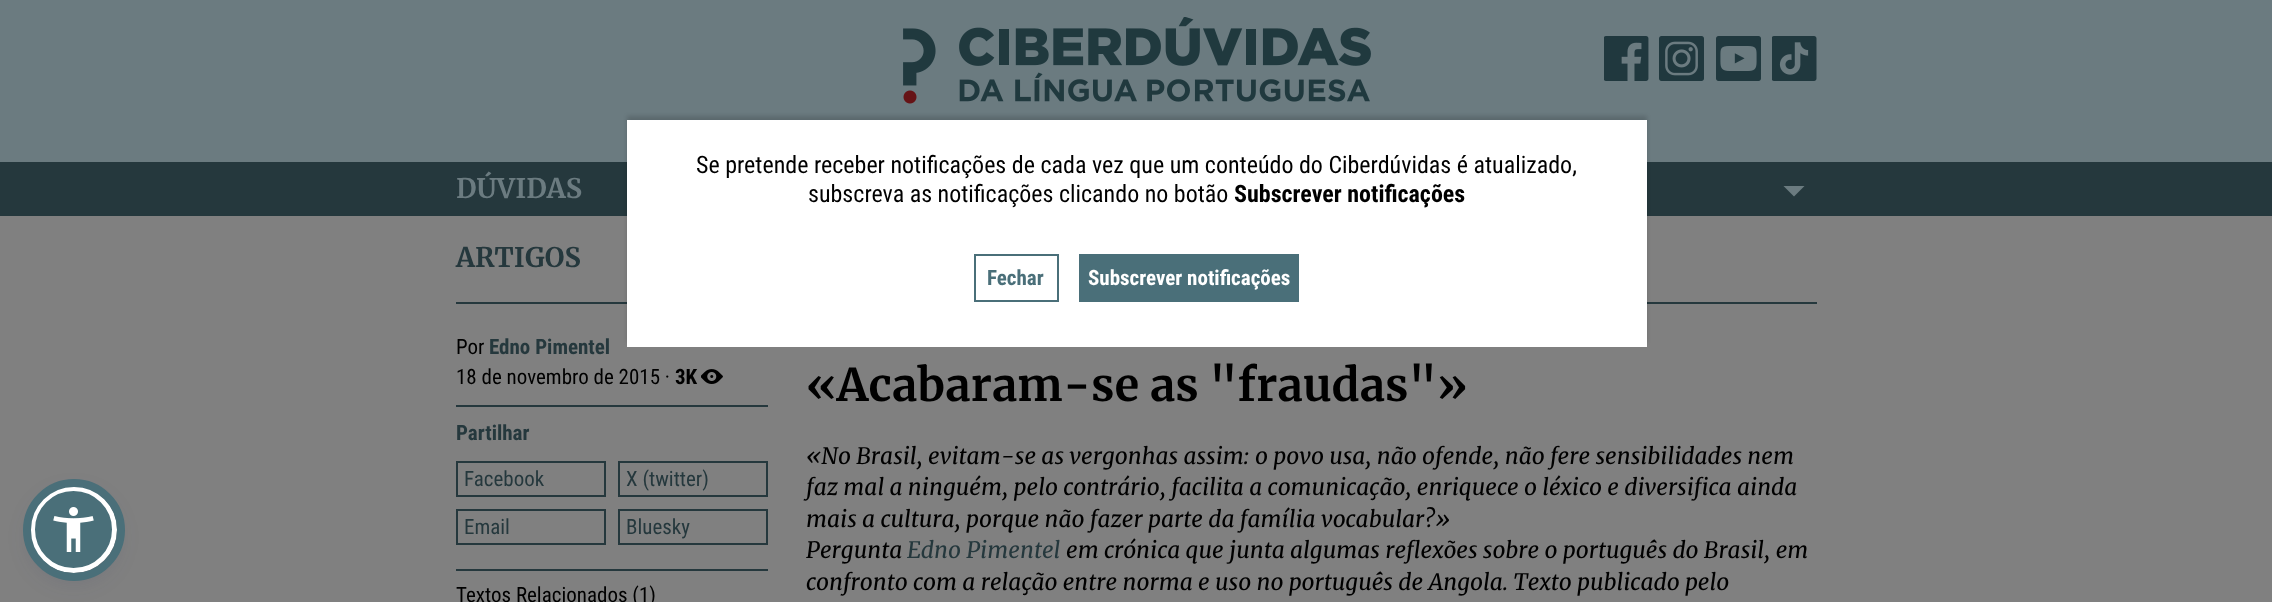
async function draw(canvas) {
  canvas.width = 2272
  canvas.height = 602
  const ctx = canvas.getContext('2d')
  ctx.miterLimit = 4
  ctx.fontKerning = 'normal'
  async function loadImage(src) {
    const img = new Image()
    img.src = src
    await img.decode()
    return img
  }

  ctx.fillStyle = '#808080'
  ctx.fillRect(0, 0, 2272, 602)
  ctx.fillStyle = '#252c6126'
  ctx.filter = 'blur(11px)'
  ctx.beginPath()
  ctx.roundRect(30, 494, 87, 87, 43.5)
  ctx.fill()
  ctx.filter = 'none'
  ctx.fillStyle = '#4a6f79'
  ctx.beginPath()
  ctx.arc(73.5, 529.5, 41, 0, 2 * Math.PI)
  ctx.fill()
  ctx.strokeStyle = '#fff'
  ctx.lineWidth = 5
  ctx.stroke()
  ctx.beginPath()
  ctx.arc(74, 530, 47, 0, 2 * Math.PI)
  ctx.strokeStyle = '#4a6f79'
  ctx.lineWidth = 8
  ctx.stroke()
  ctx.drawImage(await loadImage('image0.png'), 53, 507, 41, 45)
  ctx.fillStyle = '#6b7b80'
  ctx.fillRect(0, 0, 2272, 162)
  ctx.drawImage(await loadImage('image1.png'), 903, 17, 468, 87)
  ctx.drawImage(await loadImage('image2.png'), 1604, 36, 45, 45)
  ctx.drawImage(await loadImage('image3.png'), 1659, 36, 45, 45)
  ctx.drawImage(await loadImage('image4.png'), 1716, 36, 45, 45)
  ctx.drawImage(await loadImage('image5.png'), 1772, 36, 45, 45)
  ctx.fillStyle = '#25383d'
  ctx.fillRect(0, 162, 2272, 54)
  ctx.fillRect(456, 302, 1361, 2)
  ctx.fillStyle = '#00000026'
  ctx.filter = 'blur(2px)'
  ctx.beginPath()
  ctx.rect(627, 116, 1020, 226)
  ctx.fill()
  ctx.filter = 'none'
  ctx.fillStyle = '#fff'
  ctx.fillRect(627, 120, 1020, 227)
  ctx.font = '24px Roboto Condensed'
  ctx.fillStyle = '#000'
  ctx.fillText('Se pretende receber notificações de cada vez que um conteúdo do Ciberdúvidas é atualizado,', 696, 173)
  ctx.fillText('subscreva as notificações clicando no botão', 808, 202)
  ctx.font = 'bold 24px Roboto Condensed'
  ctx.fillText('Subscrever notificações', 1234, 202)
  ctx.lineWidth = 2
  ctx.strokeRect(975, 255, 83, 46)
  ctx.font = 'bold 21px Roboto Condensed'
  ctx.fillStyle = '#4a6f79'
  ctx.fillText('Fechar', 987, 285)
  ctx.fillRect(1079, 254, 220, 48)
  ctx.fillStyle = '#fff'
  ctx.fillText('Subscrever notificações', 1088, 285)
  ctx.font = 'bold 27px Merriweather'
  ctx.fillStyle = '#6b7b80'
  ctx.fillText('DÚVIDAS', 456, 198)
  ctx.beginPath()
  ctx.moveTo(1783.5, 186)
  ctx.lineTo(1804.5, 186)
  ctx.lineTo(1794, 196.5)
  ctx.closePath()
  ctx.fill()
  ctx.fillStyle = '#25383d'
  ctx.fillText('ARTIGOS', 456, 267)
  ctx.font = '21px Roboto Condensed'
  ctx.fillStyle = '#000'
  ctx.fillText('Por', 456, 354)
  ctx.font = 'bold 21px Roboto Condensed'
  ctx.fillStyle = '#25383d'
  ctx.fillText('Edno Pimentel', 489, 354)
  ctx.font = '21px Roboto Condensed'
  ctx.fillStyle = '#000'
  ctx.fillText('18 de novembro de 2015 ·', 456, 384)
  ctx.font = 'bold 21px Roboto Condensed'
  ctx.fillText('3K', 675, 384)
  ctx.drawImage(await loadImage('image6.png'), 701, 369, 22, 15)
  ctx.fillStyle = '#25383d'
  ctx.fillRect(456, 405, 312, 2)
  ctx.fillText('Partilhar', 456, 440)
  ctx.strokeStyle = '#25383d'
  ctx.strokeRect(457, 462, 148, 34)
  ctx.font = '21px Roboto Condensed'
  ctx.fillText('Facebook', 464, 486)
  ctx.strokeRect(619, 462, 148, 34)
  ctx.fillText('X (twitter)', 626, 486)
  ctx.strokeRect(457, 510, 148, 34)
  ctx.fillText('Email', 464, 534)
  ctx.strokeRect(619, 510, 148, 34)
  ctx.fillText('Bluesky', 626, 534)
  ctx.fillRect(456, 569, 312, 2)
  ctx.fillStyle = '#000'
  ctx.fillText('Textos Relacionados (1)', 456, 602)
  ctx.font = 'bold 45px Merriweather'
  ctx.fillText('«Acabaram-se as "fraudas"»', 806, 401)
  ctx.font = 'italic 22.5px Merriweather'
  ctx.fillText('«No Brasil, evitam-se as vergonhas assim: o povo usa, não ofende, não fere sensibilidades nem', 806, 464)
  ctx.fillText('faz mal a ninguém, pelo contrário, facilita a comunicação, enriquece o léxico e diversifica ainda', 806, 495)
  ctx.fillText('mais a cultura, porque não fazer parte da família vocabular?»', 806, 527)
  ctx.fillText('Pergunta', 806, 558)
  ctx.fillStyle = '#25383d'
  ctx.fillText('Edno Pimentel', 907, 558)
  ctx.fillStyle = '#000'
  ctx.fillText('em crónica que junta algumas reflexões sobre o português do Brasil, em', 1066, 558)
  ctx.fillText('confronto com a relação entre norma e uso no português de Angola. Texto publicado pelo', 806, 590)
}

draw(document.querySelector('canvas'))
